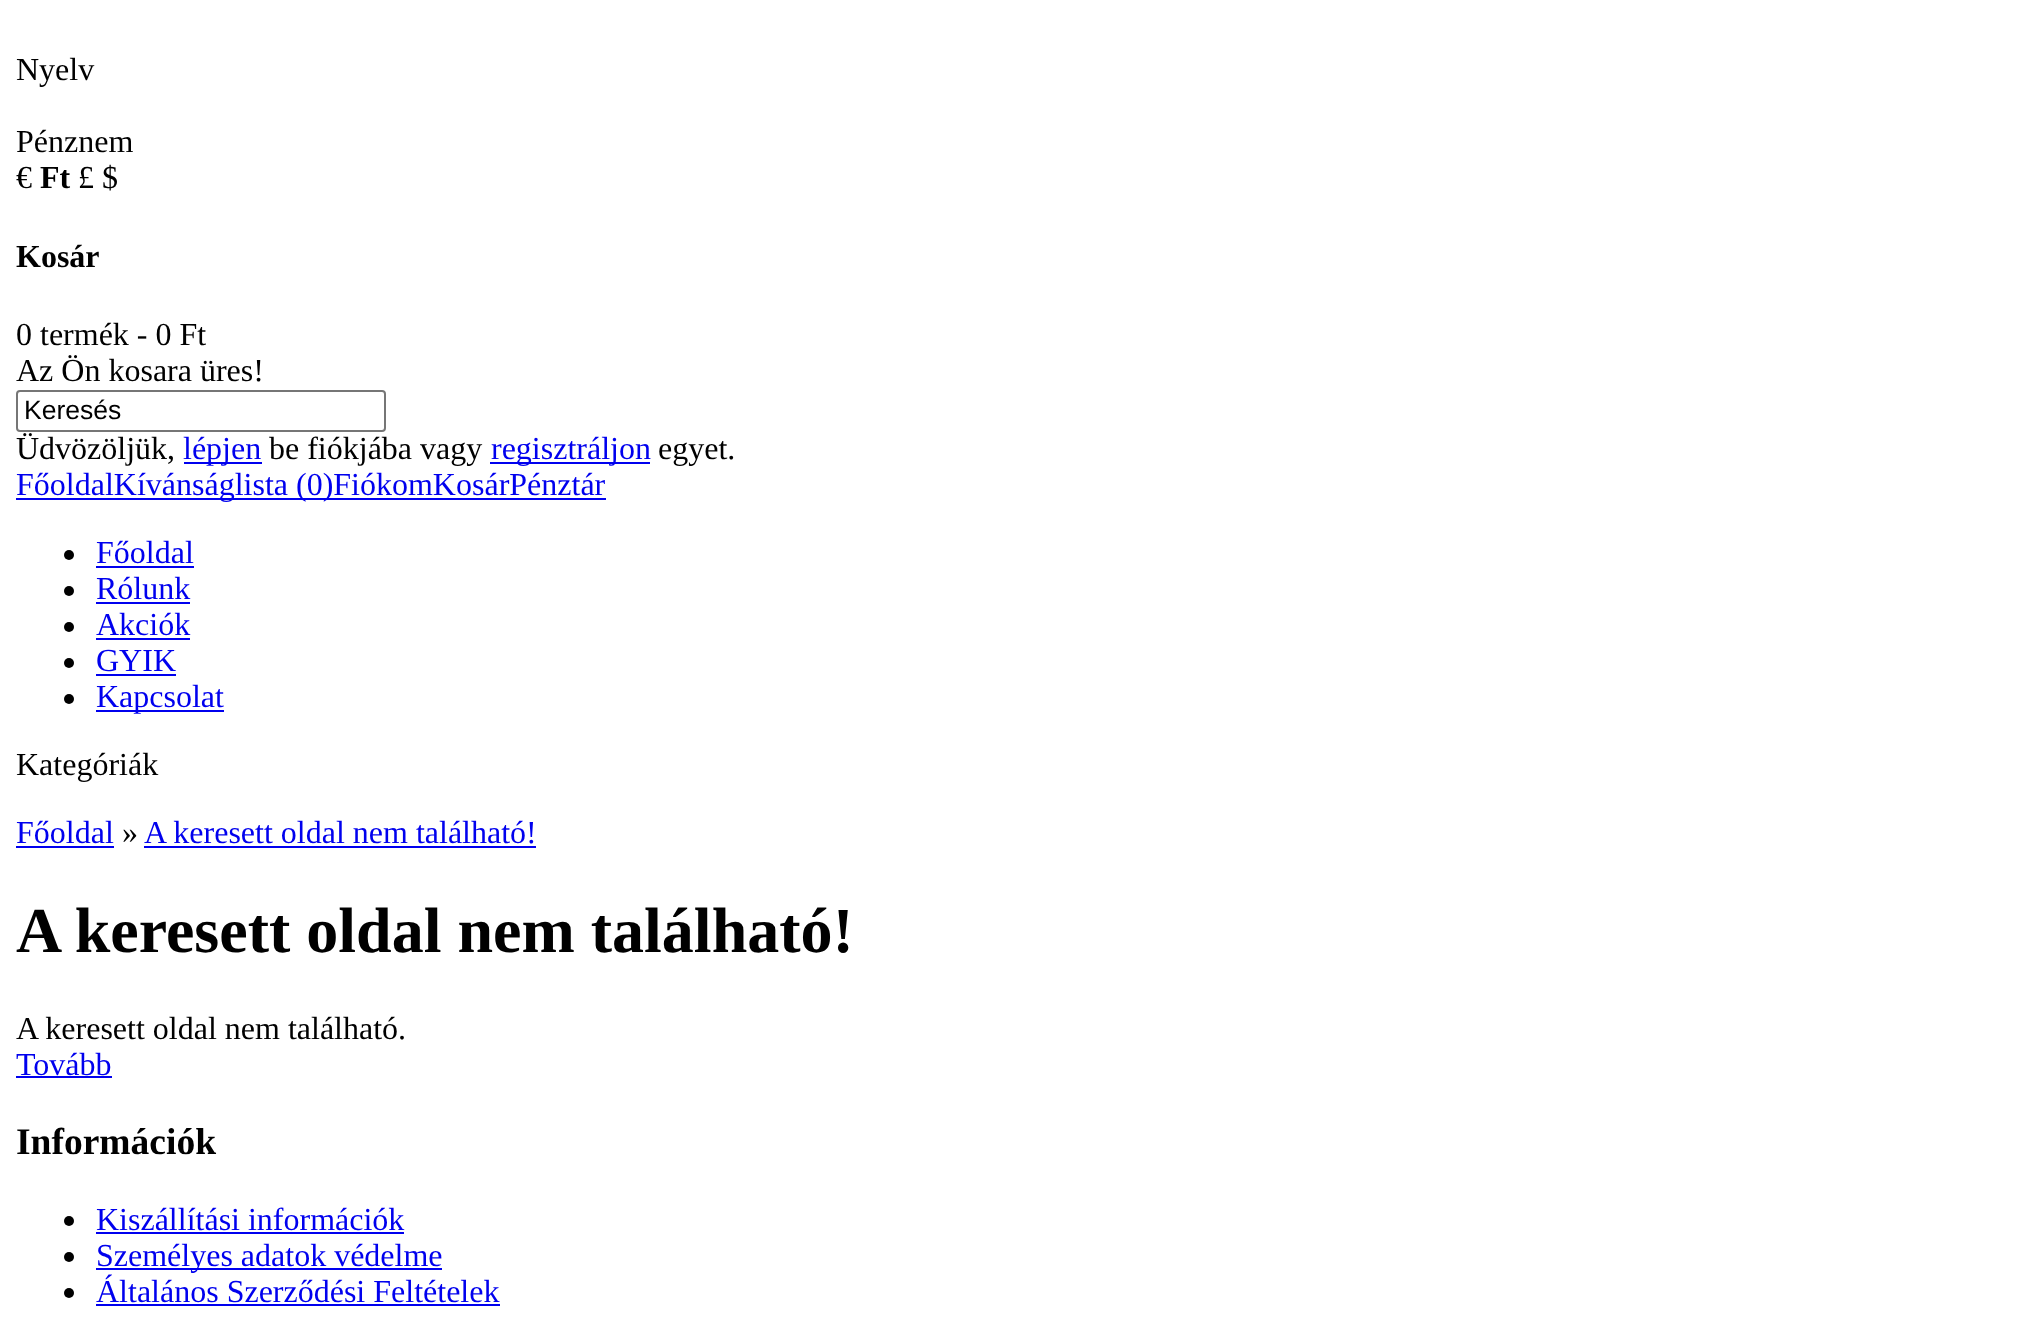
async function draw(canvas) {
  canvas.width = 2030
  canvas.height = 1319
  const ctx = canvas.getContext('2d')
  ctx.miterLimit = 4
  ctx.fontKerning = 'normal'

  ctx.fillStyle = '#fff'
  ctx.fillRect(0, 0, 2030, 1319)
  ctx.font = '32px Liberation Serif'
  ctx.fillStyle = '#000'
  ctx.fillText('Nyelv', 16, 80)
  ctx.fillText('Pénznem', 16, 152)
  ctx.fillText('€', 16, 188)
  ctx.font = 'bold 32px Liberation Serif'
  ctx.fillText('Ft', 40, 188)
  ctx.font = '32px Liberation Serif'
  ctx.fillText('£ $', 78, 188)
  ctx.font = 'bold 32px Liberation Serif'
  ctx.fillText('Kosár', 16, 267)
  ctx.font = '32px Liberation Serif'
  ctx.fillText('0 termék - 0 Ft', 16, 345)
  ctx.fillText('Az Ön kosara üres!', 16, 381)
  ctx.beginPath()
  ctx.roundRect(17, 391, 368, 40, 3)
  ctx.strokeStyle = '#767676'
  ctx.lineWidth = 2
  ctx.stroke()
  ctx.font = '26.5px Liberation Sans'
  ctx.fillText('Keresés', 24, 419)
  ctx.font = '32px Liberation Serif'
  ctx.fillText('Üdvözöljük,', 16, 459)
  ctx.fillStyle = '#00e'
  ctx.fillRect(184, 462, 78, 2)
  ctx.fillText('lépjen', 183, 459)
  ctx.fillStyle = '#000'
  ctx.fillText('be fiókjába vagy', 269, 459)
  ctx.fillStyle = '#00e'
  ctx.fillRect(490, 462, 160, 2)
  ctx.fillText('regisztráljon', 491, 459)
  ctx.fillStyle = '#000'
  ctx.fillText('egyet.', 658, 459)
  ctx.fillStyle = '#00e'
  ctx.fillRect(16, 498, 416, 2)
  ctx.fillText('FőoldalKívánságlista (0)FiókomKosárPénztár', 16, 495)
  ctx.fillRect(432, 498, 174, 2)
  ctx.fillStyle = '#000'
  ctx.beginPath()
  ctx.arc(69, 555, 5, 0, 2 * Math.PI)
  ctx.fill()
  ctx.fillStyle = '#00e'
  ctx.fillText('Főoldal', 96, 563)
  ctx.fillRect(96, 566, 98, 2)
  ctx.fillStyle = '#000'
  ctx.beginPath()
  ctx.arc(69, 591, 5, 0, 2 * Math.PI)
  ctx.fill()
  ctx.fillStyle = '#00e'
  ctx.fillText('Rólunk', 96, 599)
  ctx.fillRect(96, 602, 94, 2)
  ctx.fillStyle = '#000'
  ctx.beginPath()
  ctx.arc(69, 627, 5, 0, 2 * Math.PI)
  ctx.fill()
  ctx.fillStyle = '#00e'
  ctx.fillText('Akciók', 96, 635)
  ctx.fillRect(96, 638, 94, 2)
  ctx.fillStyle = '#000'
  ctx.beginPath()
  ctx.arc(69, 663, 5, 0, 2 * Math.PI)
  ctx.fill()
  ctx.fillStyle = '#00e'
  ctx.fillText('GYIK', 96, 671)
  ctx.fillRect(96, 674, 80, 2)
  ctx.fillStyle = '#000'
  ctx.beginPath()
  ctx.arc(69, 699, 5, 0, 2 * Math.PI)
  ctx.fill()
  ctx.fillStyle = '#00e'
  ctx.fillRect(96, 710, 128, 2)
  ctx.fillText('Kapcsolat', 96, 707)
  ctx.fillStyle = '#000'
  ctx.fillText('Kategóriák', 16, 775)
  ctx.fillStyle = '#00e'
  ctx.fillText('Főoldal', 16, 843)
  ctx.fillRect(16, 846, 98, 2)
  ctx.fillStyle = '#000'
  ctx.fillText('»', 122, 843)
  ctx.fillStyle = '#00e'
  ctx.fillText('A keresett oldal nem található!', 144, 843)
  ctx.fillRect(144, 846, 392, 2)
  ctx.font = 'bold 64px Liberation Serif'
  ctx.fillStyle = '#000'
  ctx.fillText('A keresett oldal nem található!', 16, 952)
  ctx.font = '32px Liberation Serif'
  ctx.fillText('A keresett oldal nem található.', 16, 1039)
  ctx.fillStyle = '#00e'
  ctx.fillText('Tovább', 16, 1075)
  ctx.fillRect(16, 1076, 96, 2)
  ctx.font = 'bold 37.5px Liberation Serif'
  ctx.fillStyle = '#000'
  ctx.fillText('Információk', 16, 1154)
  ctx.beginPath()
  ctx.arc(69, 1221, 5, 0, 2 * Math.PI)
  ctx.fill()
  ctx.font = '32px Liberation Serif'
  ctx.fillStyle = '#00e'
  ctx.fillText('Kiszállítási információk', 96, 1230)
  ctx.fillRect(96, 1232, 308, 2)
  ctx.fillStyle = '#000'
  ctx.beginPath()
  ctx.arc(69, 1257, 5, 0, 2 * Math.PI)
  ctx.fill()
  ctx.fillStyle = '#00e'
  ctx.fillRect(96, 1268, 346, 2)
  ctx.fillText('Személyes adatok védelme', 96, 1266)
  ctx.fillStyle = '#000'
  ctx.beginPath()
  ctx.arc(69, 1293, 5, 0, 2 * Math.PI)
  ctx.fill()
  ctx.fillStyle = '#00e'
  ctx.fillText('Általános Szerződési Feltételek', 96, 1302)
  ctx.fillRect(96, 1304, 404, 2)
}

draw(document.querySelector('canvas'))
